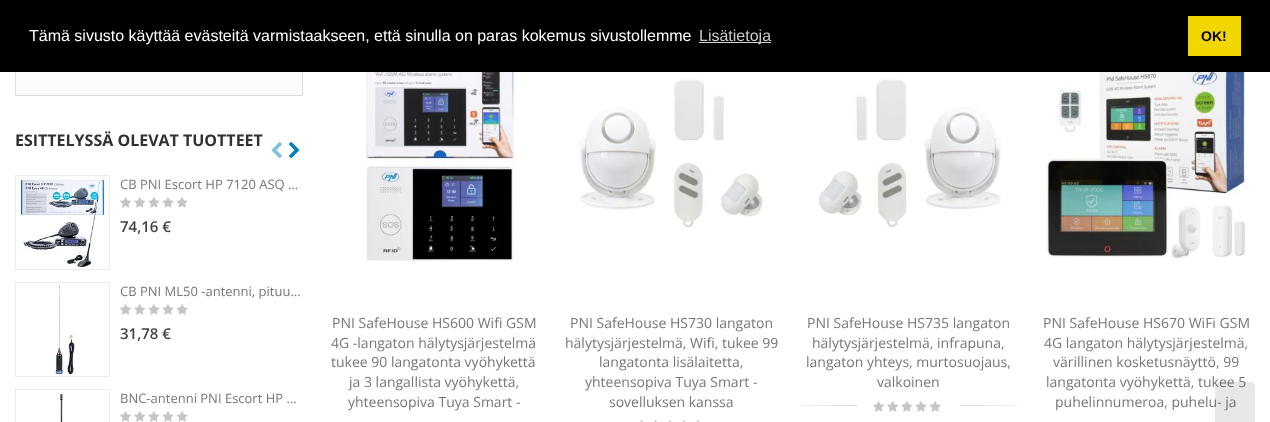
async function draw(canvas) {
  canvas.width = 1270
  canvas.height = 422
  const ctx = canvas.getContext('2d')
  ctx.miterLimit = 4
  ctx.fontKerning = 'normal'
  async function loadImage(src) {
    const img = new Image()
    img.src = src
    await img.decode()
    return img
  }

  ctx.fillStyle = '#fff'
  ctx.fillRect(0, 0, 1270, 422)
  ctx.fillStyle = '#000'
  ctx.fillRect(0, 0, 1270, 72)
  ctx.font = '16px Liberation Sans'
  ctx.fillStyle = '#fff'
  ctx.fillText('Tämä sivusto käyttää evästeitä varmistaakseen, että sinulla on paras kokemus sivustollemme', 29, 41)
  ctx.fillStyle = '#ccc'
  ctx.fillRect(699, 42, 72, 1)
  ctx.fillText('Lisätietoja', 699, 41)
  ctx.fillStyle = '#f1d600'
  ctx.fillRect(1188, 16, 53, 40)
  ctx.font = 'bold 14px Liberation Sans'
  ctx.fillStyle = '#000'
  ctx.fillText('OK!', 1201, 41)
  ctx.fillStyle = '#fbfbfb'
  ctx.fillRect(16, 72, 286, 23)
  ctx.fillStyle = '#ddd'
  ctx.fillRect(302, 72, 1, 24)
  ctx.fillRect(15, 95, 288, 1)
  ctx.fillRect(15, 72, 1, 24)
  ctx.font = 'bold 16px Open Sans'
  ctx.fillStyle = '#313131'
  ctx.fillText('ESITTELYSSÄ OLEVAT TUOTTEET', 15, 146)
  ctx.drawImage(await loadImage('image0.png'), 271, 142, 11, 17)
  ctx.drawImage(await loadImage('image1.png'), 288, 142, 12, 17)
  ctx.strokeStyle = '#ececec'
  ctx.strokeRect(15.5, 175.5, 94, 94)
  ctx.drawImage(await loadImage('image2.png'), 16, 176, 90, 93)
  ctx.font = '13px Open Sans'
  ctx.fillStyle = '#777'
  ctx.fillText('CB PNI Escort HP 7120 ASQ …', 120, 189)
  ctx.drawImage(await loadImage('image3.png'), 120, 197, 68, 11)
  ctx.font = '600 15px Open Sans'
  ctx.fillStyle = '#444'
  ctx.fillText('74,16 €', 120, 232)
  ctx.strokeRect(15.5, 282.5, 94, 94)
  ctx.drawImage(await loadImage('image4.png'), 55, 283, 21, 93)
  ctx.font = '13px Open Sans'
  ctx.fillStyle = '#777'
  ctx.fillText('CB PNI ML50 -antenni, pituu…', 120, 296)
  ctx.drawImage(await loadImage('image3.png'), 120, 304, 68, 11)
  ctx.font = '600 15px Open Sans'
  ctx.fillStyle = '#444'
  ctx.fillText('31,78 €', 120, 339)
  ctx.strokeRect(15.5, 389.5, 94, 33)
  ctx.drawImage(await loadImage('image5.png'), 56, 392, 8, 30)
  ctx.font = '13px Open Sans'
  ctx.fillStyle = '#777'
  ctx.fillText('BNC-antenni PNI Escort HP …', 120, 403)
  ctx.drawImage(await loadImage('image3.png'), 120, 411, 68, 11)
  ctx.drawImage(await loadImage('image6.png'), 366, 72, 151, 190)
  ctx.font = '14px Open Sans'
  ctx.fillText('PNI SafeHouse HS600 Wifi GSM', 332, 328)
  ctx.fillText('4G -langaton hälytysjärjestelmä', 331, 348)
  ctx.fillText('tukee 90 langatonta vyöhykettä', 331, 367)
  ctx.fillText('ja 3 langallista vyöhykettä,', 349, 387)
  ctx.fillText('yhteensopiva Tuya Smart -', 348, 407)
  ctx.drawImage(await loadImage('image7.png'), 580, 79, 185, 149)
  ctx.fillText('PNI SafeHouse HS730 langaton', 570, 328)
  ctx.fillText('hälytysjärjestelmä, Wifi, tukee 99', 565, 348)
  ctx.fillText('langatonta lisälaitetta,', 599, 367)
  ctx.fillText('yhteensopiva Tuya Smart -', 585, 387)
  ctx.fillText('sovelluksen kanssa', 609, 407)
  ctx.drawImage(await loadImage('image8.png'), 640, 420, 60, 2)
  ctx.drawImage(await loadImage('image9.png'), 818, 79, 183, 149)
  ctx.fillText('PNI SafeHouse HS735 langaton', 807, 328)
  ctx.fillText('hälytysjärjestelmä, infrapuna,', 812, 348)
  ctx.fillText('langaton yhteys, murtosuojaus,', 806, 367)
  ctx.fillText('valkoinen', 877, 387)
  ctx.drawImage(await loadImage('image10.png'), 800, 405, 218, 1)
  ctx.drawImage(await loadImage('image3.png'), 873, 401, 68, 11)
  ctx.drawImage(await loadImage('image11.png'), 1045, 72, 202, 187)
  ctx.fillText('PNI SafeHouse HS670 WiFi GSM', 1043, 328)
  ctx.fillText('4G langaton hälytysjärjestelmä,', 1044, 348)
  ctx.fillText('värillinen kosketusnäyttö, 99', 1053, 367)
  ctx.fillText('langatonta vyöhykettä, tukee 5', 1046, 387)
  ctx.fillText('puhelinnumeroa, puhelu- ja', 1055, 407)
  ctx.fillStyle = '#4040401f'
  ctx.beginPath()
  ctx.roundRect(1215, 382, 40, 40, [5, 5, 0, 0])
  ctx.fill()
  ctx.drawImage(await loadImage('image12.png'), 1230, 399, 6, 5)
}

draw(document.querySelector('canvas'))
